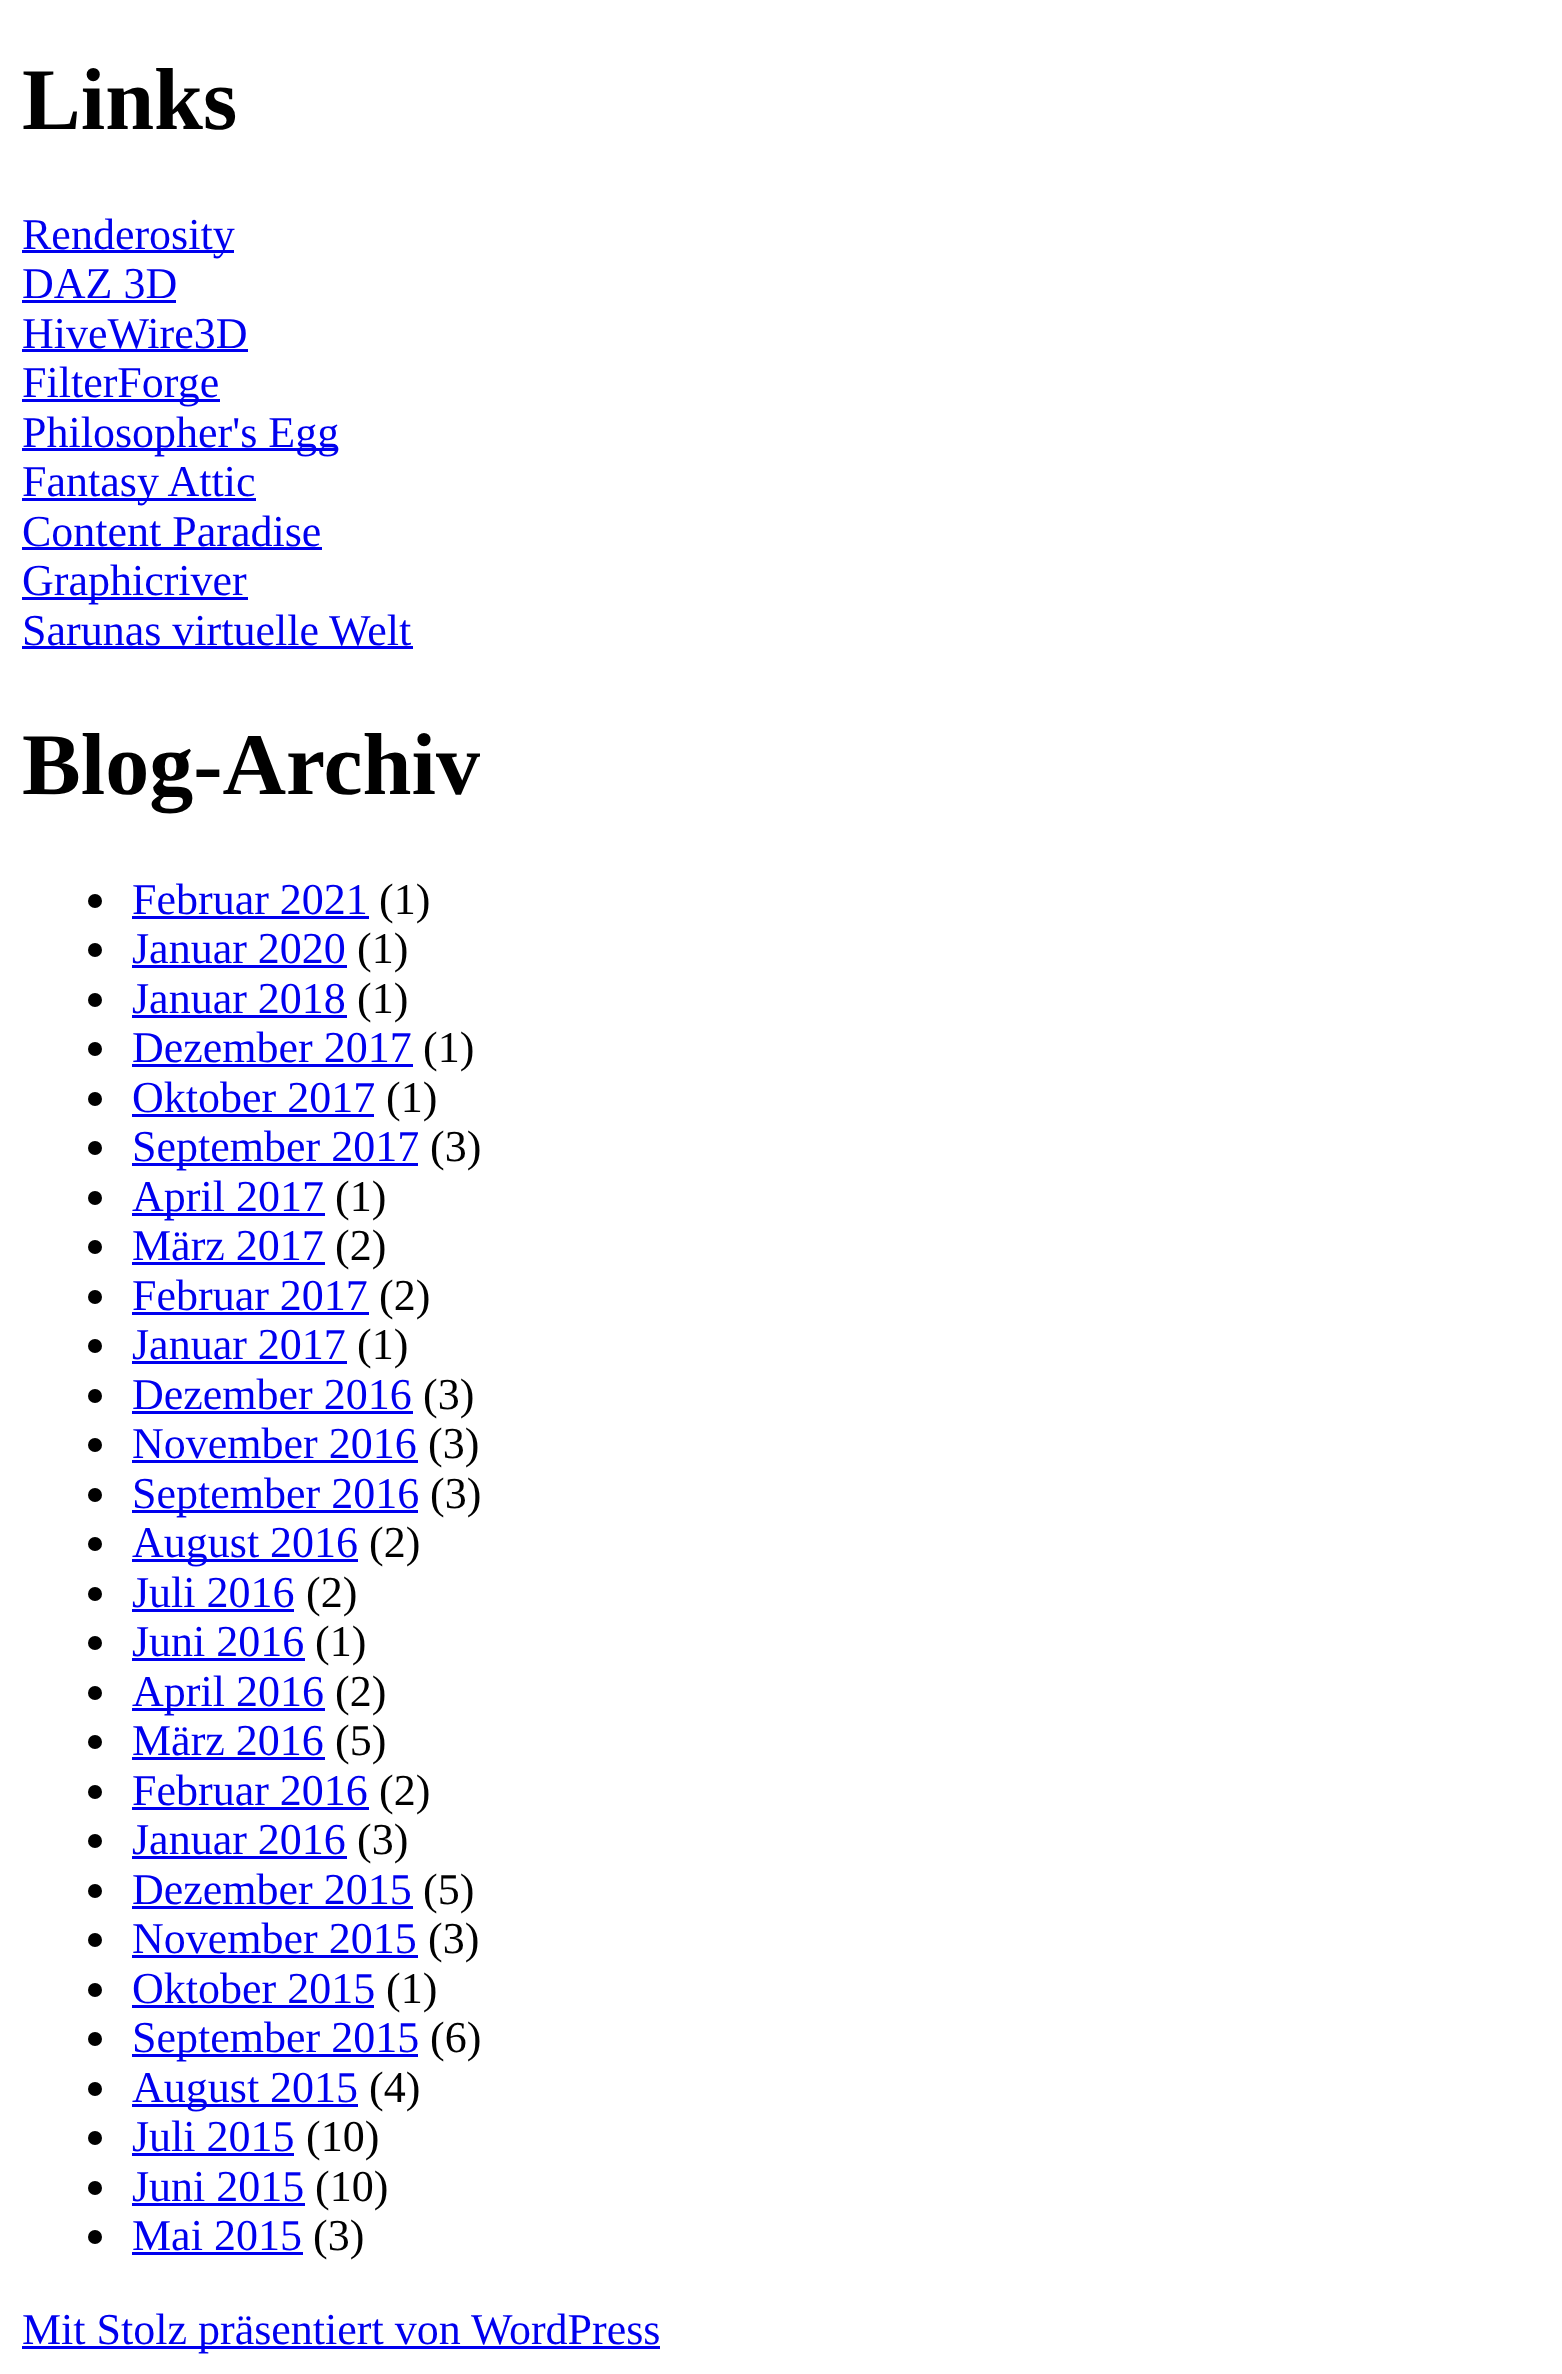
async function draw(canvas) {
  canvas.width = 1562
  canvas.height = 2374
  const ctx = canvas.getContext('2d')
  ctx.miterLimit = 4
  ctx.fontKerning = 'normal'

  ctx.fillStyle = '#fff'
  ctx.fillRect(0, 0, 1562, 2374)
  ctx.font = 'bold 88px Liberation Serif'
  ctx.fillStyle = '#000'
  ctx.fillText('Links', 22, 129)
  ctx.fillStyle = '#00e'
  ctx.fillRect(22, 250, 212, 3)
  ctx.font = '44px Liberation Serif'
  ctx.fillText('Renderosity', 22, 249)
  ctx.fillText('DAZ 3D', 22, 298)
  ctx.fillRect(22, 300, 154, 3)
  ctx.fillText('HiveWire3D', 22, 348)
  ctx.fillRect(22, 349, 226, 3)
  ctx.fillRect(22, 399, 198, 3)
  ctx.fillText('FilterForge', 22, 397)
  ctx.fillRect(22, 448, 316, 3)
  ctx.fillText('Philosopher\'s Egg', 22, 447)
  ctx.fillRect(22, 498, 234, 3)
  ctx.fillText('Fantasy Attic', 22, 496)
  ctx.fillText('Content Paradise', 22, 546)
  ctx.fillRect(22, 547, 300, 3)
  ctx.fillRect(22, 597, 226, 3)
  ctx.fillText('Graphicriver', 22, 595)
  ctx.fillText('Sarunas virtuelle Welt', 22, 645)
  ctx.fillRect(22, 646, 391, 3)
  ctx.font = 'bold 88px Liberation Serif'
  ctx.fillStyle = '#000'
  ctx.fillText('Blog-Archiv', 22, 794)
  ctx.beginPath()
  ctx.arc(95, 901, 7, 0, 2 * Math.PI)
  ctx.fill()
  ctx.font = '44px Liberation Serif'
  ctx.fillStyle = '#00e'
  ctx.fillText('Februar 2021', 132, 914)
  ctx.fillRect(132, 916, 237, 3)
  ctx.fillStyle = '#000'
  ctx.fillText('(1)', 379, 914)
  ctx.beginPath()
  ctx.arc(95, 950, 7, 0, 2 * Math.PI)
  ctx.fill()
  ctx.fillStyle = '#00e'
  ctx.fillText('Januar 2020', 132, 963)
  ctx.fillRect(132, 965, 215, 3)
  ctx.fillStyle = '#000'
  ctx.fillText('(1)', 357, 963)
  ctx.beginPath()
  ctx.arc(95, 1000, 7, 0, 2 * Math.PI)
  ctx.fill()
  ctx.fillStyle = '#00e'
  ctx.fillText('Januar 2018', 132, 1013)
  ctx.fillRect(132, 1015, 215, 3)
  ctx.fillStyle = '#000'
  ctx.fillText('(1)', 357, 1013)
  ctx.beginPath()
  ctx.arc(95, 1049, 7, 0, 2 * Math.PI)
  ctx.fill()
  ctx.fillStyle = '#00e'
  ctx.fillText('Dezember 2017', 132, 1062)
  ctx.fillRect(132, 1064, 281, 3)
  ctx.fillStyle = '#000'
  ctx.fillText('(1)', 423, 1062)
  ctx.beginPath()
  ctx.arc(95, 1099, 7, 0, 2 * Math.PI)
  ctx.fill()
  ctx.fillStyle = '#00e'
  ctx.fillText('Oktober 2017', 132, 1112)
  ctx.fillRect(132, 1114, 242, 3)
  ctx.fillStyle = '#000'
  ctx.fillText('(1)', 386, 1112)
  ctx.beginPath()
  ctx.arc(95, 1148, 7, 0, 2 * Math.PI)
  ctx.fill()
  ctx.fillStyle = '#00e'
  ctx.fillRect(132, 1163, 286, 3)
  ctx.fillText('September 2017', 132, 1161)
  ctx.fillStyle = '#000'
  ctx.fillText('(3)', 430, 1161)
  ctx.beginPath()
  ctx.arc(95, 1198, 7, 0, 2 * Math.PI)
  ctx.fill()
  ctx.fillStyle = '#00e'
  ctx.fillRect(132, 1213, 193, 3)
  ctx.fillText('April 2017', 132, 1211)
  ctx.fillStyle = '#000'
  ctx.fillText('(1)', 335, 1211)
  ctx.beginPath()
  ctx.arc(95, 1247, 7, 0, 2 * Math.PI)
  ctx.fill()
  ctx.fillStyle = '#00e'
  ctx.fillText('März 2017', 132, 1260)
  ctx.fillRect(132, 1262, 193, 3)
  ctx.fillStyle = '#000'
  ctx.fillText('(2)', 335, 1260)
  ctx.beginPath()
  ctx.arc(95, 1297, 7, 0, 2 * Math.PI)
  ctx.fill()
  ctx.fillStyle = '#00e'
  ctx.fillText('Februar 2017', 132, 1310)
  ctx.fillRect(132, 1312, 237, 3)
  ctx.fillStyle = '#000'
  ctx.fillText('(2)', 379, 1310)
  ctx.beginPath()
  ctx.arc(95, 1346, 7, 0, 2 * Math.PI)
  ctx.fill()
  ctx.fillStyle = '#00e'
  ctx.fillText('Januar 2017', 132, 1359)
  ctx.fillRect(132, 1361, 215, 3)
  ctx.fillStyle = '#000'
  ctx.fillText('(1)', 357, 1359)
  ctx.beginPath()
  ctx.arc(95, 1396, 7, 0, 2 * Math.PI)
  ctx.fill()
  ctx.fillStyle = '#00e'
  ctx.fillText('Dezember 2016', 132, 1409)
  ctx.fillRect(132, 1411, 281, 3)
  ctx.fillStyle = '#000'
  ctx.fillText('(3)', 423, 1409)
  ctx.beginPath()
  ctx.arc(95, 1445, 7, 0, 2 * Math.PI)
  ctx.fill()
  ctx.fillStyle = '#00e'
  ctx.fillText('November 2016', 132, 1458)
  ctx.fillRect(132, 1460, 286, 3)
  ctx.fillStyle = '#000'
  ctx.fillText('(3)', 428, 1458)
  ctx.beginPath()
  ctx.arc(95, 1495, 7, 0, 2 * Math.PI)
  ctx.fill()
  ctx.fillStyle = '#00e'
  ctx.fillRect(132, 1510, 286, 3)
  ctx.fillText('September 2016', 132, 1508)
  ctx.fillStyle = '#000'
  ctx.fillText('(3)', 430, 1508)
  ctx.beginPath()
  ctx.arc(95, 1544, 7, 0, 2 * Math.PI)
  ctx.fill()
  ctx.fillStyle = '#00e'
  ctx.fillRect(132, 1559, 226, 3)
  ctx.fillText('August 2016', 132, 1557)
  ctx.fillStyle = '#000'
  ctx.fillText('(2)', 369, 1557)
  ctx.beginPath()
  ctx.arc(95, 1594, 7, 0, 2 * Math.PI)
  ctx.fill()
  ctx.fillStyle = '#00e'
  ctx.fillText('Juli 2016', 132, 1607)
  ctx.fillRect(132, 1609, 162, 3)
  ctx.fillStyle = '#000'
  ctx.fillText('(2)', 306, 1607)
  ctx.beginPath()
  ctx.arc(95, 1643, 7, 0, 2 * Math.PI)
  ctx.fill()
  ctx.fillStyle = '#00e'
  ctx.fillText('Juni 2016', 132, 1656)
  ctx.fillRect(132, 1658, 173, 3)
  ctx.fillStyle = '#000'
  ctx.fillText('(1)', 315, 1656)
  ctx.beginPath()
  ctx.arc(95, 1693, 7, 0, 2 * Math.PI)
  ctx.fill()
  ctx.fillStyle = '#00e'
  ctx.fillRect(132, 1708, 193, 3)
  ctx.fillText('April 2016', 132, 1706)
  ctx.fillStyle = '#000'
  ctx.fillText('(2)', 335, 1706)
  ctx.beginPath()
  ctx.arc(95, 1742, 7, 0, 2 * Math.PI)
  ctx.fill()
  ctx.fillStyle = '#00e'
  ctx.fillText('März 2016', 132, 1755)
  ctx.fillRect(132, 1757, 193, 3)
  ctx.fillStyle = '#000'
  ctx.fillText('(5)', 335, 1755)
  ctx.beginPath()
  ctx.arc(95, 1792, 7, 0, 2 * Math.PI)
  ctx.fill()
  ctx.fillStyle = '#00e'
  ctx.fillText('Februar 2016', 132, 1805)
  ctx.fillRect(132, 1807, 237, 3)
  ctx.fillStyle = '#000'
  ctx.fillText('(2)', 379, 1805)
  ctx.beginPath()
  ctx.arc(95, 1841, 7, 0, 2 * Math.PI)
  ctx.fill()
  ctx.fillStyle = '#00e'
  ctx.fillText('Januar 2016', 132, 1854)
  ctx.fillRect(132, 1856, 215, 3)
  ctx.fillStyle = '#000'
  ctx.fillText('(3)', 357, 1854)
  ctx.beginPath()
  ctx.arc(95, 1891, 7, 0, 2 * Math.PI)
  ctx.fill()
  ctx.fillStyle = '#00e'
  ctx.fillText('Dezember 2015', 132, 1904)
  ctx.fillRect(132, 1906, 281, 3)
  ctx.fillStyle = '#000'
  ctx.fillText('(5)', 423, 1904)
  ctx.beginPath()
  ctx.arc(95, 1940, 7, 0, 2 * Math.PI)
  ctx.fill()
  ctx.fillStyle = '#00e'
  ctx.fillText('November 2015', 132, 1953)
  ctx.fillRect(132, 1955, 286, 3)
  ctx.fillStyle = '#000'
  ctx.fillText('(3)', 428, 1953)
  ctx.beginPath()
  ctx.arc(95, 1990, 7, 0, 2 * Math.PI)
  ctx.fill()
  ctx.fillStyle = '#00e'
  ctx.fillText('Oktober 2015', 132, 2003)
  ctx.fillRect(132, 2005, 242, 3)
  ctx.fillStyle = '#000'
  ctx.fillText('(1)', 386, 2003)
  ctx.beginPath()
  ctx.arc(95, 2039, 7, 0, 2 * Math.PI)
  ctx.fill()
  ctx.fillStyle = '#00e'
  ctx.fillRect(132, 2054, 286, 3)
  ctx.fillText('September 2015', 132, 2052)
  ctx.fillStyle = '#000'
  ctx.fillText('(6)', 430, 2052)
  ctx.beginPath()
  ctx.arc(95, 2089, 7, 0, 2 * Math.PI)
  ctx.fill()
  ctx.fillStyle = '#00e'
  ctx.fillRect(132, 2104, 226, 3)
  ctx.fillText('August 2015', 132, 2102)
  ctx.fillStyle = '#000'
  ctx.fillText('(4)', 369, 2102)
  ctx.beginPath()
  ctx.arc(95, 2138, 7, 0, 2 * Math.PI)
  ctx.fill()
  ctx.fillStyle = '#00e'
  ctx.fillText('Juli 2015', 132, 2151)
  ctx.fillRect(132, 2153, 162, 3)
  ctx.fillStyle = '#000'
  ctx.fillText('(10)', 306, 2151)
  ctx.beginPath()
  ctx.arc(95, 2188, 7, 0, 2 * Math.PI)
  ctx.fill()
  ctx.fillStyle = '#00e'
  ctx.fillText('Juni 2015', 132, 2201)
  ctx.fillRect(132, 2203, 173, 3)
  ctx.fillStyle = '#000'
  ctx.fillText('(10)', 315, 2201)
  ctx.beginPath()
  ctx.arc(95, 2237, 7, 0, 2 * Math.PI)
  ctx.fill()
  ctx.fillStyle = '#00e'
  ctx.fillText('Mai 2015', 132, 2250)
  ctx.fillRect(132, 2252, 171, 3)
  ctx.fillStyle = '#000'
  ctx.fillText('(3)', 313, 2250)
  ctx.fillStyle = '#00e'
  ctx.fillRect(22, 2346, 638, 3)
  ctx.fillText('Mit Stolz präsentiert von WordPress', 22, 2344)
}

draw(document.querySelector('canvas'))
